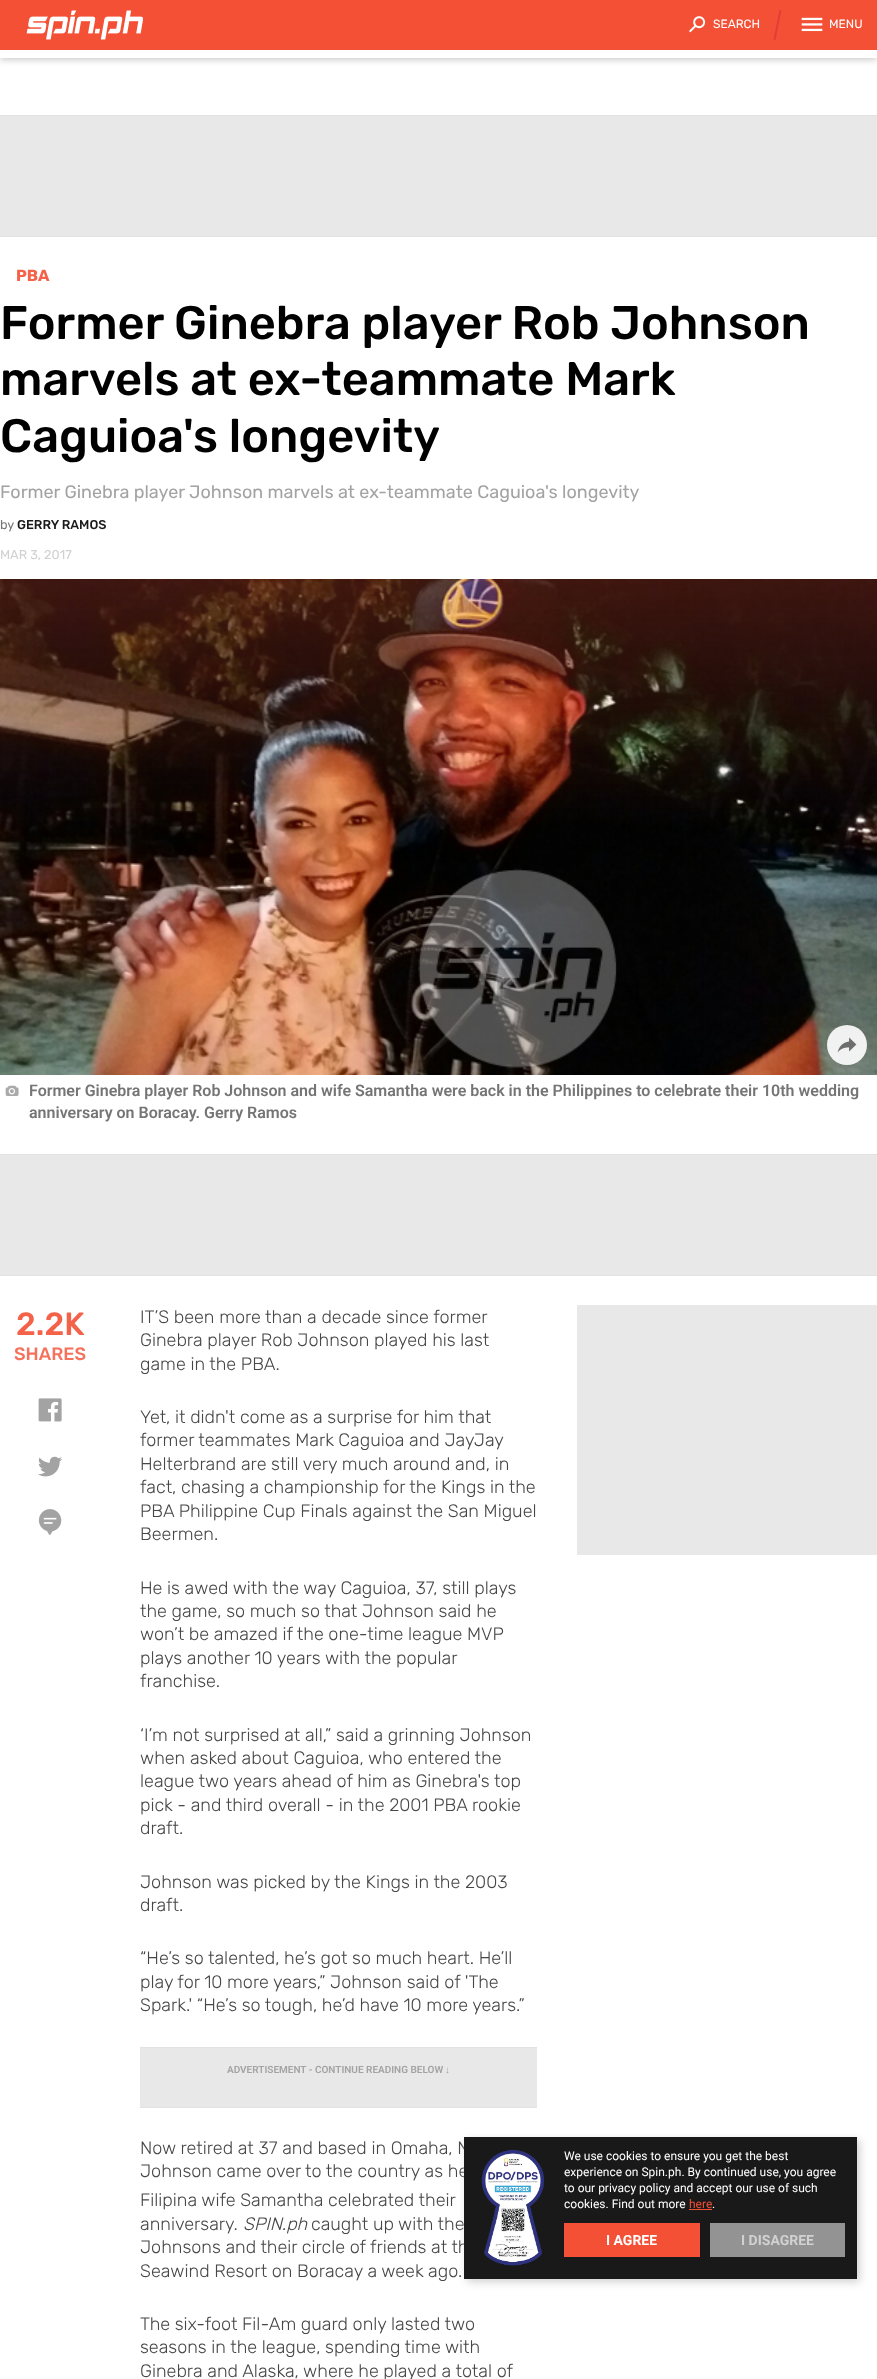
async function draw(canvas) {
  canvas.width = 877
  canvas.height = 2379
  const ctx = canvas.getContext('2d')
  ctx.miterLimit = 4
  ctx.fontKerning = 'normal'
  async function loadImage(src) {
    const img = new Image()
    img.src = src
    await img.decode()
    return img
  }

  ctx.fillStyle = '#fff'
  ctx.fillRect(0, 0, 877, 2379)
  ctx.save()
  ctx.beginPath()
  ctx.rect(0, 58, 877, 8)
  ctx.clip()
  ctx.fillStyle = '#ccc'
  ctx.filter = 'blur(3px)'
  ctx.beginPath()
  ctx.rect(0, 52, 877, 8)
  ctx.fill()
  ctx.filter = 'none'
  ctx.restore()
  ctx.fillStyle = '#f35035'
  ctx.fillRect(0, 0, 877, 50)
  ctx.drawImage(await loadImage('image0.png'), 26, 10, 117, 30)
  ctx.drawImage(await loadImage('image1.png'), 689, 16, 17, 17)
  ctx.font = '12px Rubik'
  ctx.fillStyle = '#fff'
  ctx.fillText('SEARCH', 713, 28)
  ctx.fillStyle = '#e53b3b'
  ctx.beginPath()
  ctx.moveTo(779.5, 10)
  ctx.lineTo(781.5, 10)
  ctx.lineTo(775.5, 40)
  ctx.lineTo(773.5, 40)
  ctx.closePath()
  ctx.fill()
  ctx.drawImage(await loadImage('image2.png'), 801, 17, 22, 15)
  ctx.fillStyle = '#fff'
  ctx.fillText('MENU', 829, 28)
  ctx.fillStyle = '#e2e2e2'
  ctx.fillRect(0, 115, 877, 1)
  ctx.fillRect(0, 236, 877, 1)
  ctx.fillStyle = '#e8e8e8'
  ctx.fillRect(0, 116, 877, 120)
  ctx.font = 'bold 16px Rubik'
  ctx.fillStyle = '#f46249'
  ctx.fillText('PBA', 16, 281)
  ctx.font = '500 47px Rubik'
  ctx.fillStyle = '#000'
  ctx.fillText('Former Ginebra player Rob Johnson', 0, 339)
  ctx.fillText('marvels at ex-teammate Mark', 0, 395)
  ctx.fillText('Caguioa\'s longevity', 0, 452)
  ctx.font = '18px Rubik'
  ctx.fillStyle = '#a3a3a3'
  ctx.fillText('Former Ginebra player Johnson marvels at ex-teammate Caguioa\'s longevity', 0, 498)
  ctx.font = '12.75px Rubik'
  ctx.fillStyle = '#757575'
  ctx.fillText('by', 0, 529)
  ctx.font = '500 12.75px Rubik'
  ctx.fillStyle = '#191919'
  ctx.fillText('GERRY RAMOS', 17, 529)
  ctx.font = '12.75px Rubik'
  ctx.fillStyle = '#d1d1d1'
  ctx.fillText('MAR 3, 2017', 0, 559)
  ctx.drawImage(await loadImage('image3.png'), 0, 579, 877, 496)
  ctx.fillStyle = '#ffffffe6'
  ctx.beginPath()
  ctx.arc(847, 1045, 20, 0, 2 * Math.PI)
  ctx.fill()
  ctx.drawImage(await loadImage('image4.png'), 837, 1037, 20, 16)
  ctx.drawImage(await loadImage('image5.png'), 5, 1085, 14, 11)
  ctx.font = '600 16px Roboto'
  ctx.fillStyle = '#757575'
  ctx.fillText('Former Ginebra player Rob Johnson and wife Samantha were back in the Philippines to celebrate their 10th wedding', 29, 1096)
  ctx.fillText('anniversary on Boracay. Gerry Ramos', 29, 1118)
  ctx.fillStyle = '#e2e2e2'
  ctx.fillRect(0, 1154, 877, 1)
  ctx.fillRect(0, 1275, 877, 1)
  ctx.fillStyle = '#e8e8e8'
  ctx.fillRect(0, 1155, 877, 120)
  ctx.font = '500 32px Rubik'
  ctx.fillStyle = '#f46249'
  ctx.fillText('2.2K', 16, 1335)
  ctx.font = '500 18px Rubik'
  ctx.fillStyle = '#f5735d'
  ctx.fillText('SHARES', 14, 1360)
  ctx.drawImage(await loadImage('image6.png'), 38, 1398, 24, 24)
  ctx.drawImage(await loadImage('image7.png'), 38, 1456, 24, 21)
  ctx.drawImage(await loadImage('image8.png'), 38, 1509, 24, 26)
  ctx.font = '300 18px Rubik'
  ctx.fillStyle = '#474747'
  ctx.fillText('IT’S been more than a decade since former', 140, 1323)
  ctx.fillText('Ginebra player Rob Johnson played his last', 140, 1346)
  ctx.fillText('game in the PBA.', 140, 1370)
  ctx.fillText('Yet, it didn\'t come as a surprise for him that', 140, 1423)
  ctx.fillText('former teammates Mark Caguioa and JayJay', 140, 1446)
  ctx.fillText('Helterbrand are still very much around and, in', 140, 1470)
  ctx.fillText('fact, chasing a championship for the Kings in the', 140, 1493)
  ctx.fillText('PBA Philippine Cup Finals against the San Miguel', 140, 1517)
  ctx.fillText('Beermen.', 140, 1540)
  ctx.fillText('He is awed with the way Caguioa, 37, still plays', 140, 1594)
  ctx.fillText('the game, so much so that Johnson said he', 140, 1617)
  ctx.fillText('won’t be amazed if the one-time league MVP', 140, 1640)
  ctx.fillText('plays another 10 years with the popular', 140, 1664)
  ctx.fillText('franchise.', 140, 1687)
  ctx.fillText('‘I’m not surprised at all,” said a grinning Johnson', 140, 1741)
  ctx.fillText('when asked about Caguioa, who entered the', 140, 1764)
  ctx.fillText('league two years ahead of him as Ginebra\'s top', 140, 1787)
  ctx.fillText('pick - and third overall - in the 2001 PBA rookie', 140, 1811)
  ctx.fillText('draft.', 140, 1834)
  ctx.fillText('Johnson was picked by the Kings in the 2003', 140, 1888)
  ctx.fillText('draft.', 140, 1911)
  ctx.fillText('“He’s so talented, he’s got so much heart. He’ll', 140, 1964)
  ctx.fillText('play for 10 more years,” Johnson said of \'The', 140, 1988)
  ctx.fillText('Spark.\' “He’s so tough, he’d have 10 more years.”', 140, 2011)
  ctx.fillStyle = '#e2e2e2'
  ctx.fillRect(140, 2047, 397, 1)
  ctx.fillRect(140, 2107, 397, 1)
  ctx.fillStyle = '#e8e8e8'
  ctx.fillRect(140, 2048, 397, 59)
  ctx.font = '600 10px Roboto'
  ctx.fillStyle = '#a3a3a3'
  ctx.fillText('ADVERTISEMENT - CONTINUE READING BELOW', 227, 2073)
  ctx.font = 'bold 10px Liberation Sans'
  ctx.fillText('↓', 445, 2073)
  ctx.font = '300 18px Rubik'
  ctx.fillStyle = '#474747'
  ctx.fillText('Now retired at 37 and based in Omaha, N', 140, 2154)
  ctx.fillText('Johnson came over to the country as he', 140, 2177)
  ctx.fillText('Filipina wife Samantha celebrated their', 140, 2206)
  ctx.fillText('anniversary.', 140, 2230)
  ctx.font = 'italic 300 18px Rubik'
  ctx.fillText('SPIN.ph', 243, 2230)
  ctx.font = '300 18px Rubik'
  ctx.fillText('caught up with the', 311, 2230)
  ctx.fillText('Johnsons and their circle of friends at th', 140, 2253)
  ctx.fillText('Seawind Resort on Boracay a week ago.', 140, 2277)
  ctx.fillText('The six-foot Fil-Am guard only lasted two', 140, 2330)
  ctx.fillText('seasons in the league, spending time with', 140, 2353)
  ctx.fillText('Ginebra and Alaska, where he played a total of', 140, 2377)
  ctx.fillStyle = '#e8e8e8'
  ctx.fillRect(577, 1305, 300, 250)
  ctx.fillStyle = '#d1d1d1'
  ctx.filter = 'blur(4px)'
  ctx.beginPath()
  ctx.rect(467, 2140, 393, 142)
  ctx.fill()
  ctx.filter = 'none'
  ctx.fillStyle = '#191919'
  ctx.fillRect(464, 2137, 393, 142)
  ctx.drawImage(await loadImage('image9.png'), 481, 2149, 63, 117)
  ctx.font = '12px Roboto'
  ctx.fillStyle = '#fff'
  ctx.fillText('We use cookies to ensure you get the best', 564, 2160)
  ctx.fillText('experience on Spin.ph. By continued use, you agree', 564, 2176)
  ctx.fillText('to our privacy policy and accept our use of such', 564, 2192)
  ctx.fillText('cookies. Find out more', 564, 2208)
  ctx.fillStyle = '#f35035'
  ctx.fillText('here', 689, 2208)
  ctx.fillRect(689, 2209, 23, 1)
  ctx.fillStyle = '#fff'
  ctx.fillText('.', 712, 2208)
  ctx.fillStyle = '#f35035'
  ctx.fillRect(564, 2223, 136, 34)
  ctx.font = 'bold 14px Roboto'
  ctx.fillStyle = '#fff'
  ctx.fillText('I AGREE', 606, 2245)
  ctx.fillStyle = '#939393'
  ctx.fillRect(710, 2223, 135, 34)
  ctx.fillStyle = '#d1d1d1'
  ctx.fillText('I DISAGREE', 741, 2245)
}

draw(document.querySelector('canvas'))
